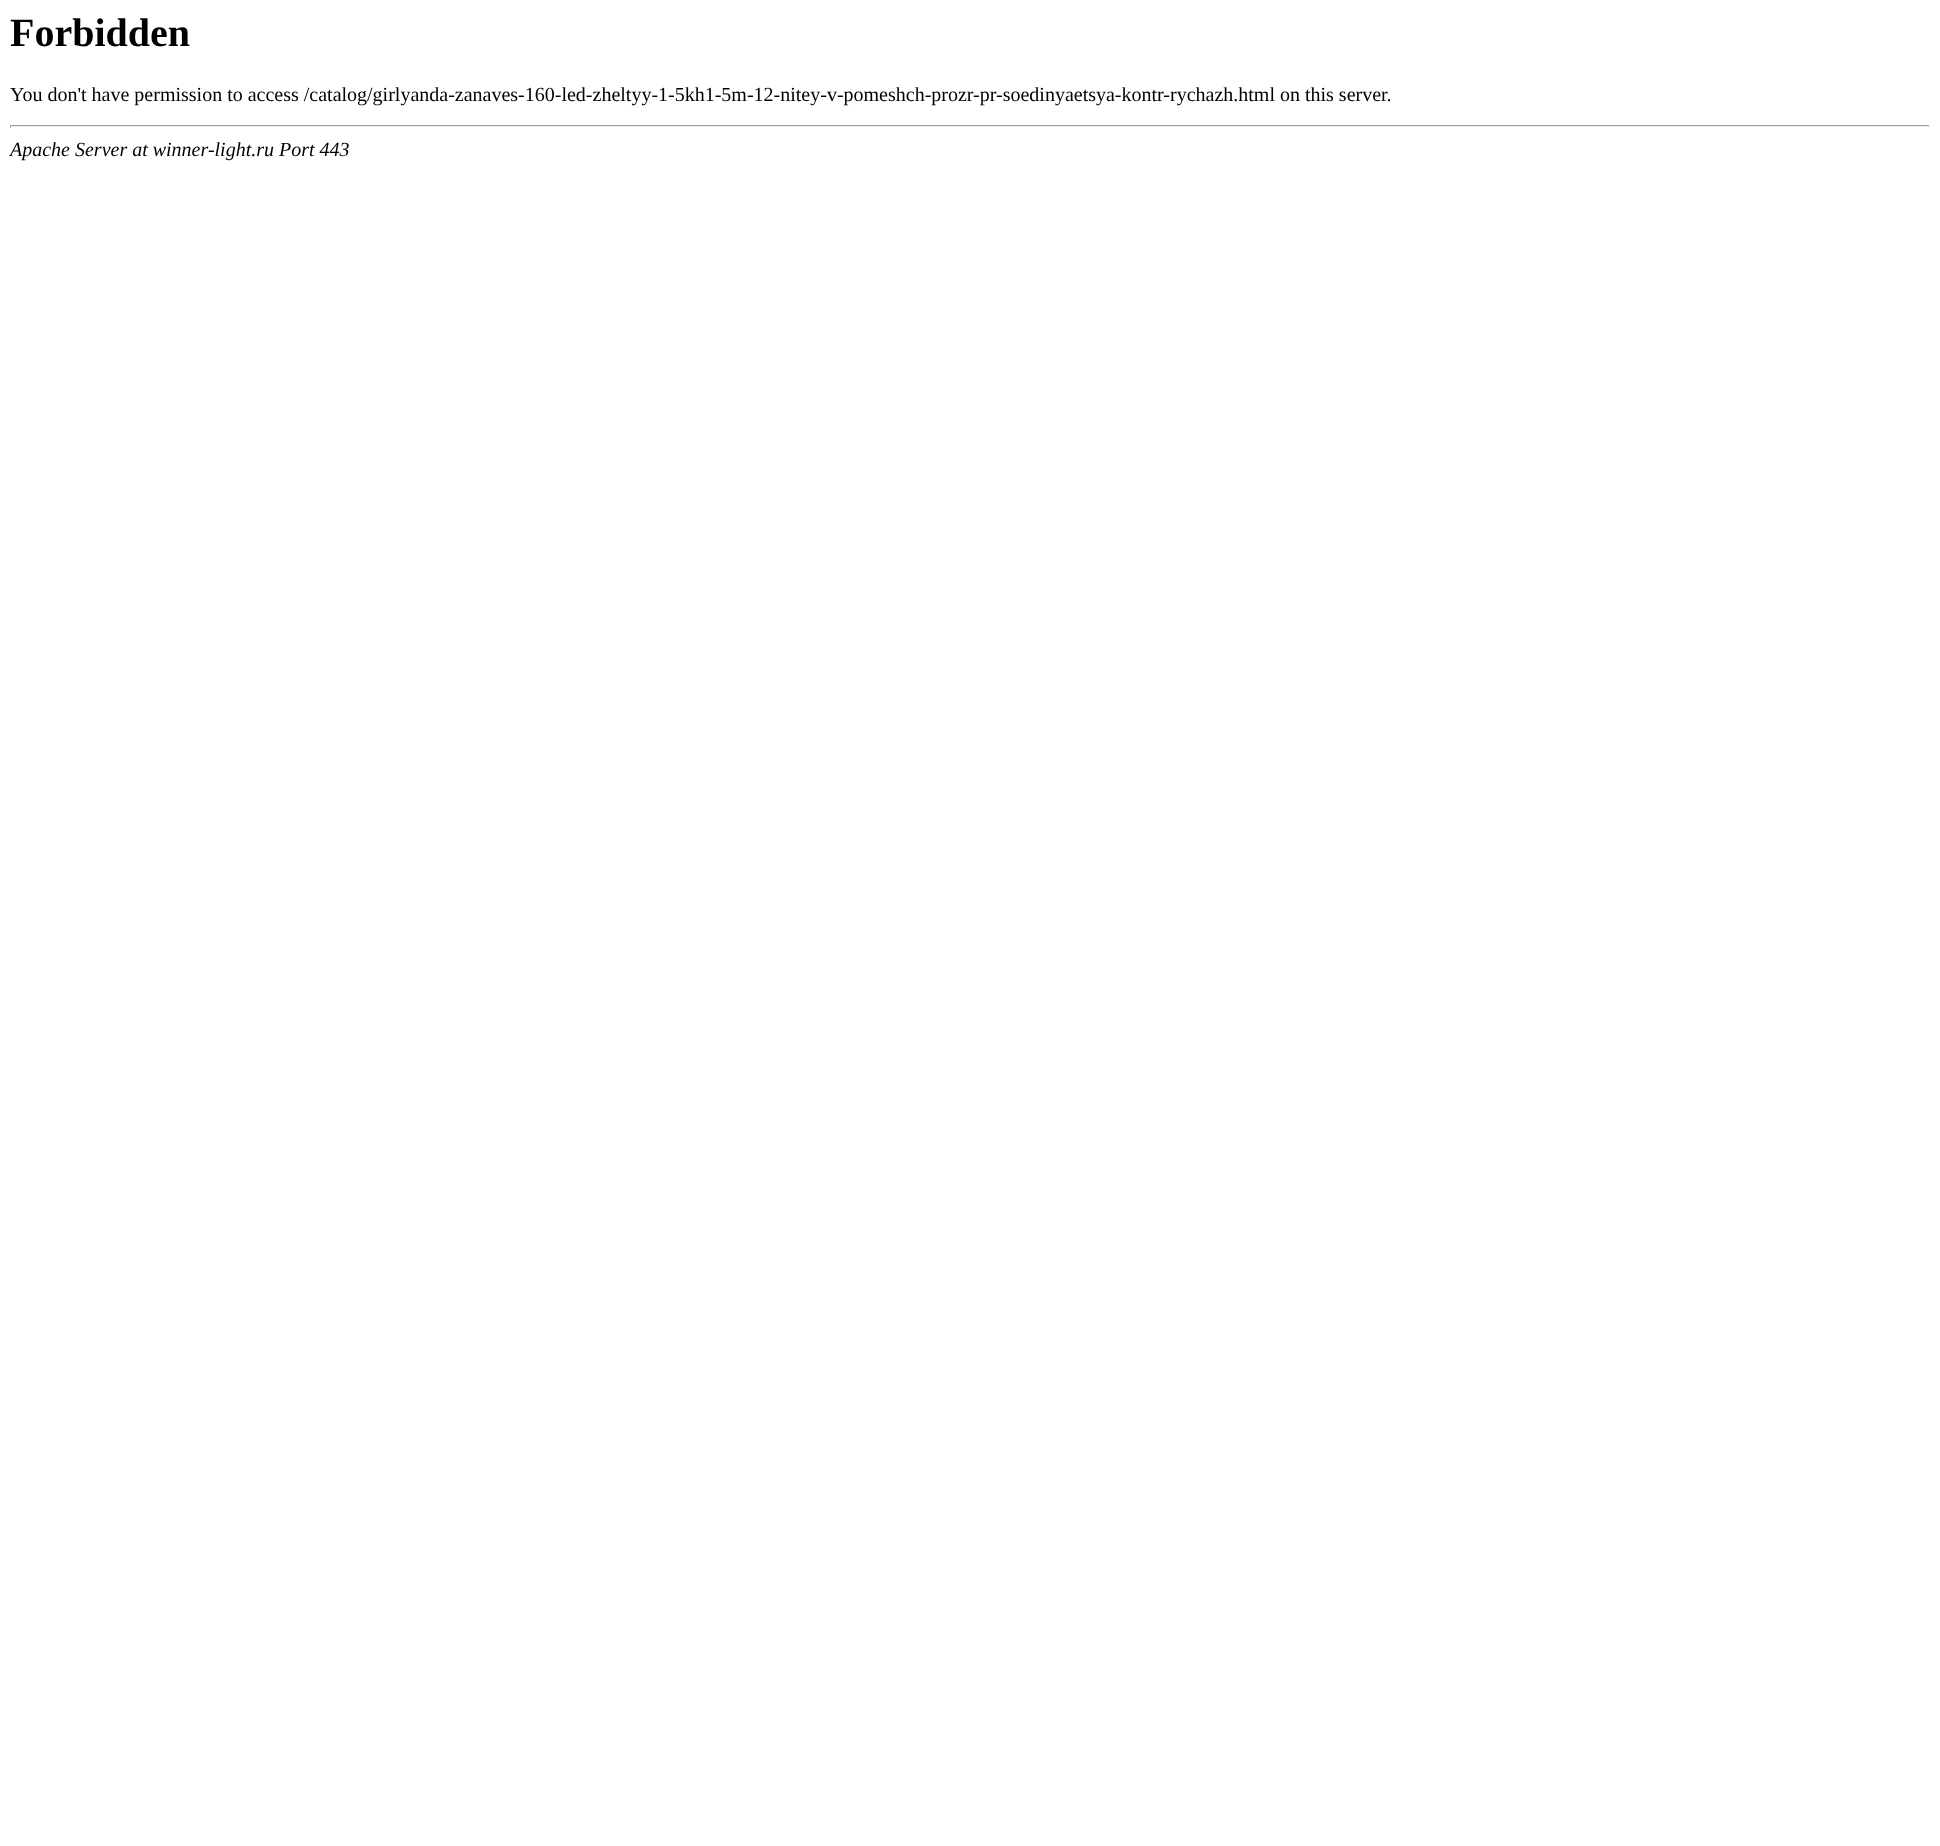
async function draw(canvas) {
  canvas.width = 1940
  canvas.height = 1846
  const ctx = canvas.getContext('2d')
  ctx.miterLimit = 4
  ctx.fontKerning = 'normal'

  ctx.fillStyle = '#fff'
  ctx.fillRect(0, 0, 1940, 1846)
  ctx.font = 'bold 40px Liberation Serif'
  ctx.fillStyle = '#000'
  ctx.fillText('Forbidden', 10, 46)
  ctx.font = '20px Liberation Serif'
  ctx.fillText('You don\'t have permission to access /catalog/girlyanda-zanaves-160-led-zheltyy-1-5kh1-5m-12-nitey-v-pomeshch-prozr-pr-soedinyaetsya-kontr-rychazh.html on this server.', 10, 101)
  ctx.fillStyle = '#9f9f9f'
  ctx.fillRect(10, 125, 1920, 1)
  ctx.fillStyle = '#eee'
  ctx.fillRect(1929, 125, 1, 3)
  ctx.fillRect(10, 126, 1920, 1)
  ctx.fillStyle = '#9f9f9f'
  ctx.fillRect(10, 125, 1, 3)
  ctx.font = 'italic 20px Liberation Serif'
  ctx.fillStyle = '#000'
  ctx.fillText('Apache Server at winner-light.ru Port 443', 10, 156)
}

draw(document.querySelector('canvas'))
